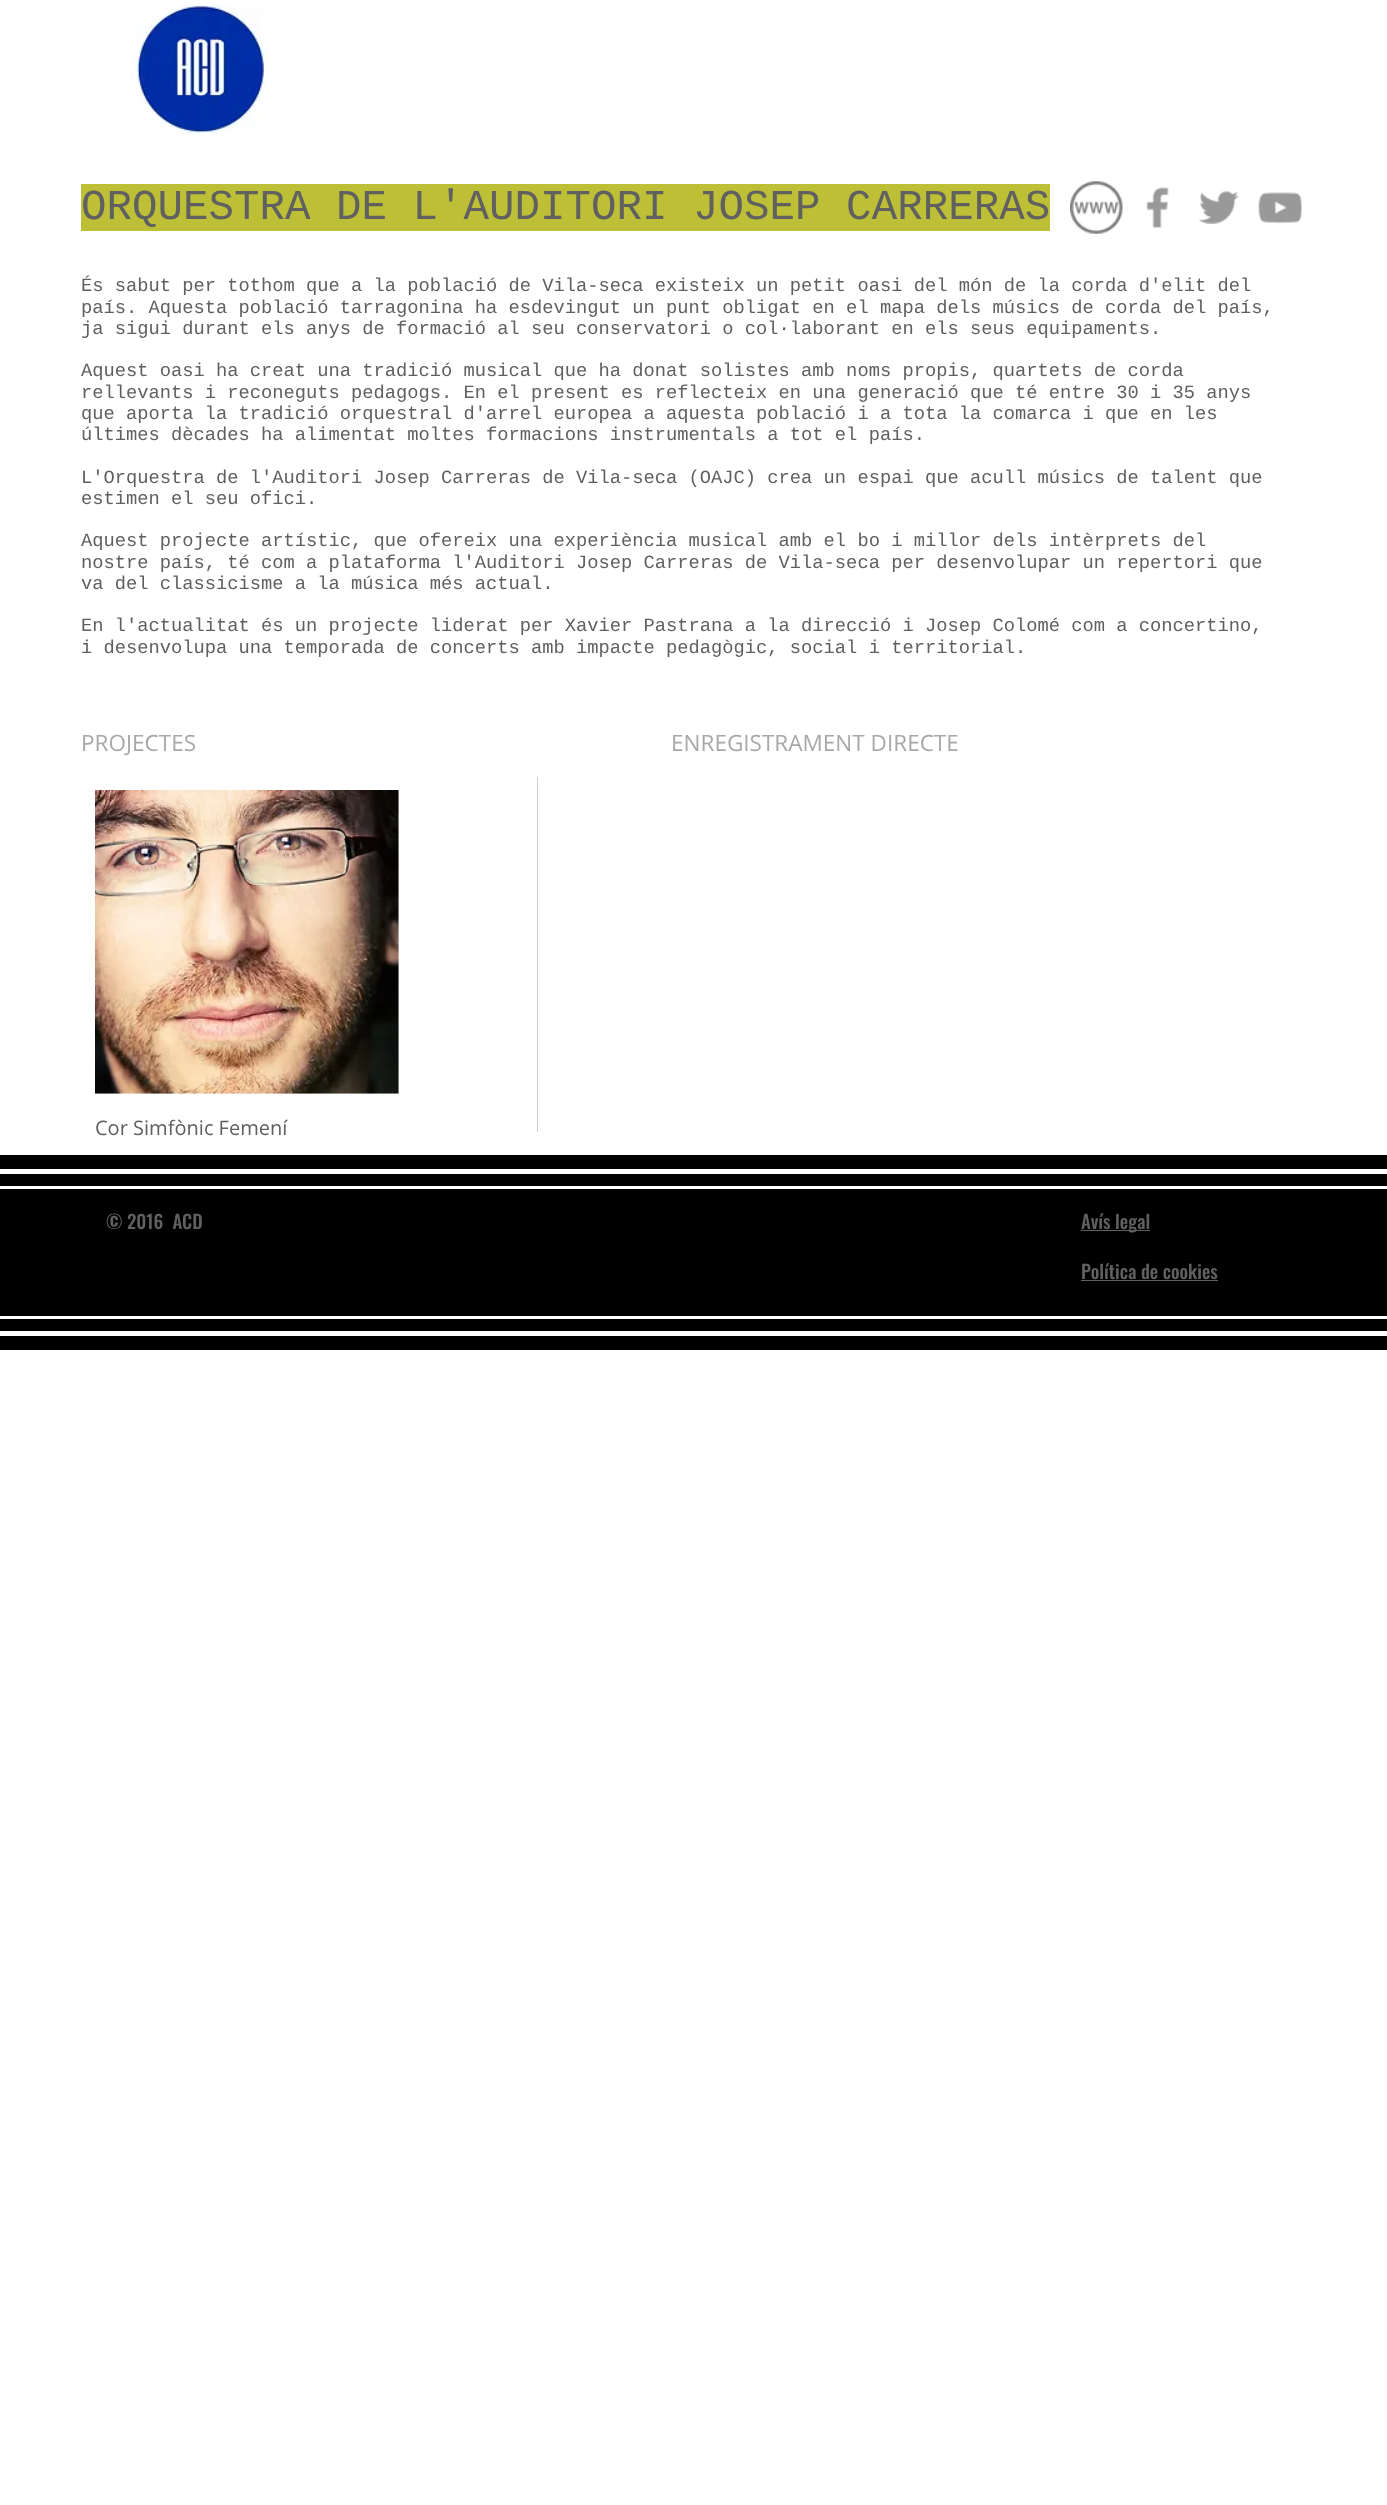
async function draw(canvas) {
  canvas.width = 1387
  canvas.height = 2505
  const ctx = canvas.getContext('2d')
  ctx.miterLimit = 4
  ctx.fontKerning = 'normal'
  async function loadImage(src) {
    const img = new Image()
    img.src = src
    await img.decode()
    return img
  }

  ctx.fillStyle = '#fff'
  ctx.fillRect(0, 0, 1387, 2505)
  ctx.drawImage(await loadImage('image0.png'), 130, 5, 141, 130)
  ctx.fillStyle = '#bdbf37'
  ctx.fillRect(81, 184, 969, 47)
  ctx.font = '42.5px Liberation Mono'
  ctx.fillStyle = '#606060'
  ctx.fillText('ORQUESTRA DE L\'AUDITORI JOSEP CARRERAS', 81, 219)
  ctx.drawImage(await loadImage('image1.png'), 1070, 181, 53, 53)
  ctx.drawImage(await loadImage('image2.png'), 1146, 187, 23, 41)
  ctx.drawImage(await loadImage('image3.png'), 1199, 191, 40, 34)
  ctx.drawImage(await loadImage('image4.png'), 1258, 192, 45, 32)
  ctx.font = '18.75px Liberation Mono'
  ctx.fillText('És sabut per tothom que a la població de Vila-seca existeix un petit oasi del món de la corda d\'elit del', 81, 291)
  ctx.fillText('país. Aquesta població tarragonina ha esdevingut un punt obligat en el mapa dels músics de corda del país,', 81, 313)
  ctx.fillText('ja sigui durant els anys de formació al seu conservatori o col·laborant en els seus equipaments.', 81, 334)
  ctx.fillText('Aquest oasi ha creat una tradició musical que ha donat solistes amb noms propis, quartets de corda', 81, 376)
  ctx.fillText('rellevants i reconeguts pedagogs. En el present es reflecteix en una generació que té entre 30 i 35 anys', 81, 398)
  ctx.fillText('que aporta la tradició orquestral d\'arrel europea a aquesta població i a tota la comarca i que en les', 81, 419)
  ctx.fillText('últimes dècades ha alimentat moltes formacions instrumentals a tot el país.', 81, 440)
  ctx.fillText('L\'Orquestra de l\'Auditori Josep Carreras de Vila-seca (OAJC) crea un espai que acull músics de talent que', 81, 483)
  ctx.fillText('estimen el seu ofici.', 81, 504)
  ctx.fillText('Aquest projecte artístic, que ofereix una experiència musical amb el bo i millor dels intèrprets del', 81, 546)
  ctx.fillText('nostre país, té com a plataforma l\'Auditori Josep Carreras de Vila-seca per desenvolupar un repertori que', 81, 568)
  ctx.fillText('va del classicisme a la música més actual.', 81, 589)
  ctx.fillText('En l\'actualitat és un projecte liderat per Xavier Pastrana a la direcció i Josep Colomé com a concertino,', 81, 631)
  ctx.fillText('i desenvolupa una temporada de concerts amb impacte pedagògic, social i territorial.', 81, 653)
  ctx.font = '22.5px Open Sans'
  ctx.fillStyle = '#a8a8a8'
  ctx.fillText('PROJECTES', 81, 751)
  ctx.fillText('ENREGISTRAMENT DIRECTE', 671, 751)
  ctx.drawImage(await loadImage('image5.png'), 95, 790, 304, 304)
  ctx.font = '20px Open Sans'
  ctx.fillStyle = '#606060'
  ctx.fillText('Cor Simfònic Femení', 95, 1135)
  ctx.fillStyle = '#cfcfcf'
  ctx.fillRect(537, 777, 1, 355)
  ctx.fillStyle = '#000'
  ctx.fillRect(0, 1155, 1387, 195)
  ctx.fillStyle = '#fff'
  ctx.fillRect(0, 1169, 1387, 5)
  ctx.fillRect(0, 1331, 1387, 5)
  ctx.fillRect(0, 1186, 1387, 3)
  ctx.fillRect(0, 1316, 1387, 3)
  ctx.font = '500 18.75px Oswald'
  ctx.fillStyle = '#606060'
  ctx.fillText('© 2016  ACD', 106, 1229)
  ctx.fillRect(1081, 1230, 69, 1)
  ctx.fillText('Avís legal', 1081, 1229)
  ctx.fillText('Política de cookies', 1081, 1279)
  ctx.fillRect(1081, 1280, 137, 1)
}

draw(document.querySelector('canvas'))
